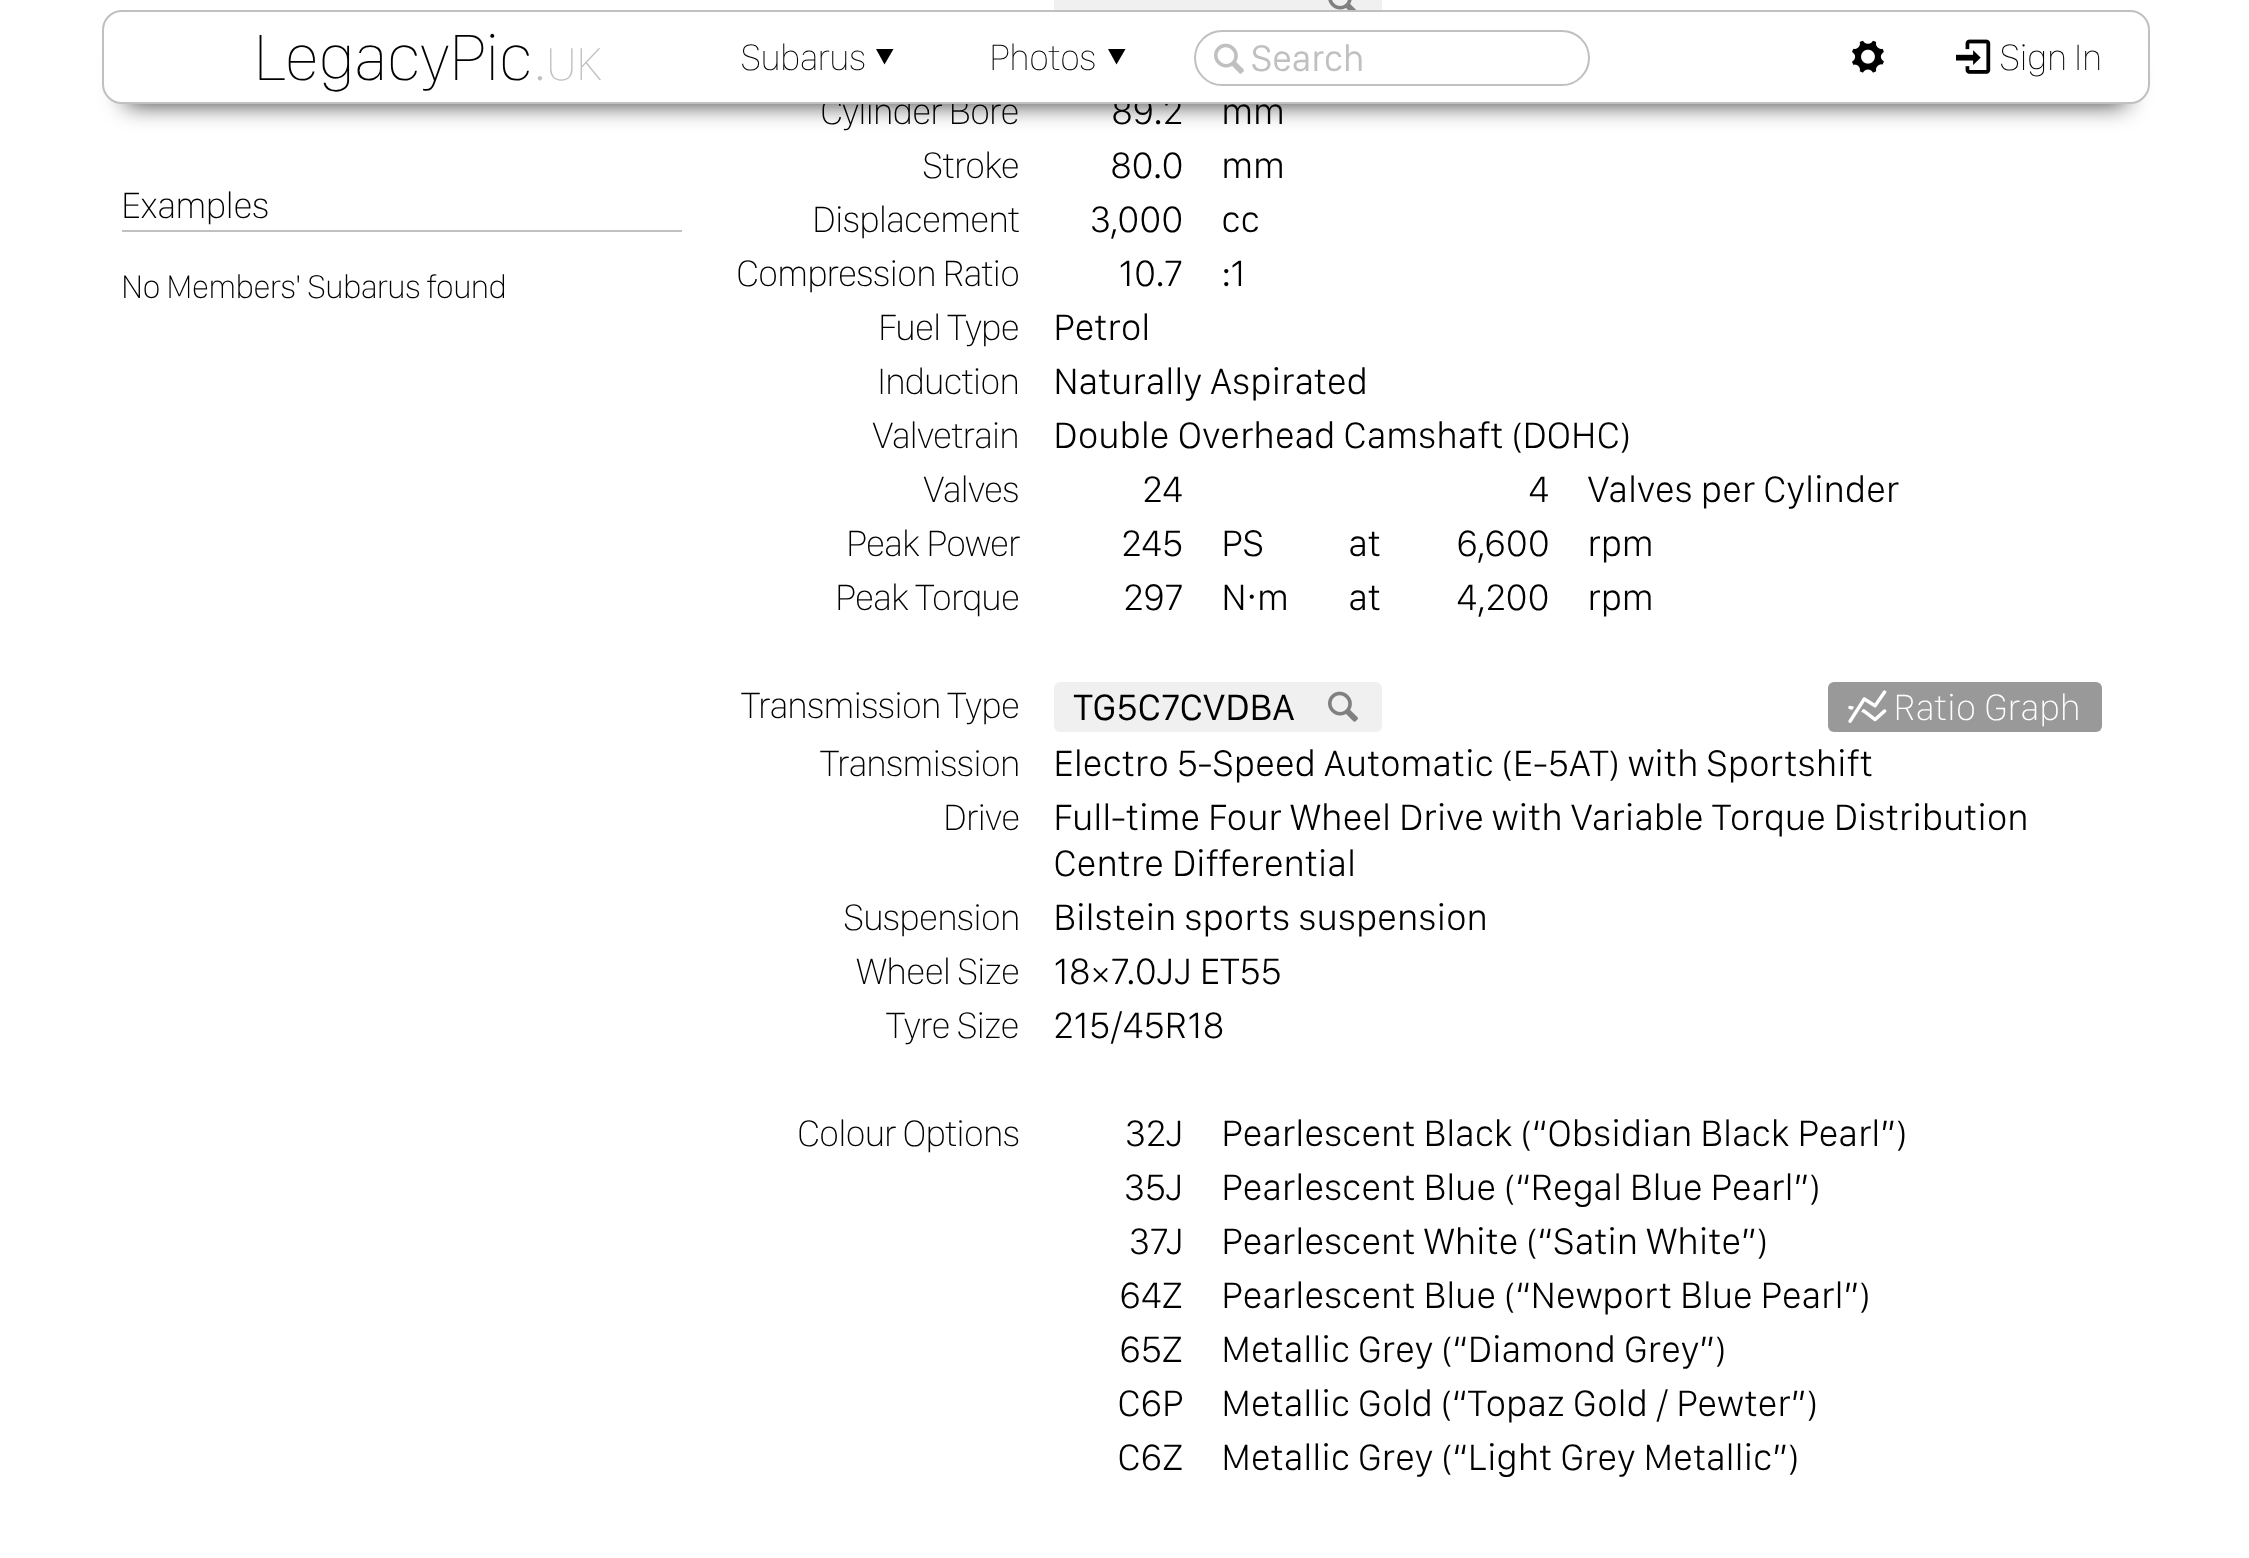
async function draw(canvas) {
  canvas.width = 2249
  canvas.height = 1558
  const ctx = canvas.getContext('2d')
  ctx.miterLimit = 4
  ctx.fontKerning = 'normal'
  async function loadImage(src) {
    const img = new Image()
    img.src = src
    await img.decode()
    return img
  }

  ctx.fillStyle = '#fff'
  ctx.fillRect(0, 0, 2249, 1558)
  ctx.fillStyle = '#000000cc'
  ctx.filter = 'blur(12px)'
  ctx.beginPath()
  ctx.rect(126, 58, 2000, 46)
  ctx.fill()
  ctx.filter = 'none'
  ctx.letterSpacing = '-1px'
  ctx.font = '100 38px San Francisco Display'
  ctx.fillStyle = '#000'
  ctx.fillText('Cylinder Bore', 820, 124)
  ctx.letterSpacing = '-0.65px'
  ctx.font = '300 38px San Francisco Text'
  ctx.fillText('89.2', 1111, 124)
  ctx.fillStyle = '#fff'
  ctx.beginPath()
  ctx.roundRect(103, 11, 2046, 92, 19)
  ctx.fill()
  ctx.strokeStyle = '#c0c0c0'
  ctx.lineWidth = 2
  ctx.stroke()
  ctx.font = '200 68px San Francisco Display'
  ctx.fillStyle = '#000'
  ctx.fillText('LegacyPic', 253, 80)
  ctx.fillStyle = '#c0c0c0'
  ctx.fillText('.', 533, 80)
  ctx.font = '200 48px San Francisco Display'
  ctx.fillText('UK', 546, 80)
  ctx.font = '200 38px San Francisco Display'
  ctx.fillStyle = '#000'
  ctx.fillText('Subarus', 740, 70)
  ctx.beginPath()
  ctx.moveTo(893.5, 49)
  ctx.lineTo(884.5, 64.5)
  ctx.lineTo(876, 49)
  ctx.closePath()
  ctx.fill()
  ctx.fillText('Photos', 989, 70)
  ctx.beginPath()
  ctx.moveTo(1125.5, 49)
  ctx.lineTo(1116.5, 64.5)
  ctx.lineTo(1108, 49)
  ctx.closePath()
  ctx.fill()
  ctx.drawImage(await loadImage('image0.png'), 1214, 43, 30, 31)
  ctx.beginPath()
  ctx.roundRect(1195, 31, 394, 54, 27)
  ctx.stroke()
  ctx.letterSpacing = '0px'
  ctx.font = '38px San Francisco Display'
  ctx.fillStyle = '#c0c0c0'
  ctx.fillText('Search', 1251, 71)
  ctx.drawImage(await loadImage('image1.png'), 1852, 40, 32, 33)
  ctx.drawImage(await loadImage('image2.png'), 1956, 39, 35, 35)
  ctx.letterSpacing = '-0.65px'
  ctx.font = '200 38px San Francisco Display'
  ctx.fillStyle = '#000'
  ctx.fillText('Sign In', 1999, 70)
  ctx.fillStyle = '#c0c0c0'
  ctx.fillRect(122, 230, 560, 2)
  ctx.font = '100 38px San Francisco Display'
  ctx.fillStyle = '#000'
  ctx.fillText('Examples', 121, 218)
  ctx.font = '100 34px San Francisco Display'
  ctx.fillText('No Members\' Subarus found', 121, 298)
  ctx.fillStyle = '#f0f0f0'
  ctx.fillRect(1054, 0, 328, 10)
  ctx.drawImage(await loadImage('image3.png'), 1328, 0, 29, 10)
  ctx.font = '300 38px San Francisco Text'
  ctx.fillStyle = '#000'
  ctx.fillText('mm', 1221, 124)
  ctx.letterSpacing = '-1px'
  ctx.font = '100 38px San Francisco Display'
  ctx.fillText('Stroke', 922, 178)
  ctx.letterSpacing = '-0.65px'
  ctx.font = '300 38px San Francisco Text'
  ctx.fillText('80.0', 1110, 178)
  ctx.fillText('mm', 1221, 178)
  ctx.letterSpacing = '-1px'
  ctx.font = '100 38px San Francisco Display'
  ctx.fillText('Displacement', 812, 232)
  ctx.letterSpacing = '-0.65px'
  ctx.font = '300 38px San Francisco Text'
  ctx.fillText('3,000', 1090, 232)
  ctx.fillText('cc', 1221, 232)
  ctx.letterSpacing = '-1px'
  ctx.font = '100 38px San Francisco Display'
  ctx.fillText('Compression Ratio', 736, 286)
  ctx.letterSpacing = '-0.65px'
  ctx.font = '300 38px San Francisco Text'
  ctx.fillText('10.7', 1118, 286)
  ctx.fillText(':1', 1221, 286)
  ctx.letterSpacing = '-1px'
  ctx.font = '100 38px San Francisco Display'
  ctx.fillText('Fuel Type', 878, 340)
  ctx.letterSpacing = '-0.65px'
  ctx.font = '300 38px San Francisco Text'
  ctx.fillText('Petrol', 1053, 340)
  ctx.letterSpacing = '-1px'
  ctx.font = '100 38px San Francisco Display'
  ctx.fillText('Induction', 877, 394)
  ctx.letterSpacing = '-0.65px'
  ctx.font = '300 38px San Francisco Text'
  ctx.fillText('Naturally Aspirated', 1053, 394)
  ctx.letterSpacing = '-1px'
  ctx.font = '100 38px San Francisco Display'
  ctx.fillText('Valvetrain', 872, 448)
  ctx.letterSpacing = '-0.65px'
  ctx.font = '300 38px San Francisco Text'
  ctx.fillText('Double Overhead Camshaft (DOHC)', 1053, 448)
  ctx.letterSpacing = '-1px'
  ctx.font = '100 38px San Francisco Display'
  ctx.fillText('Valves', 923, 502)
  ctx.letterSpacing = '-0.65px'
  ctx.font = '300 38px San Francisco Text'
  ctx.fillText('24', 1142, 502)
  ctx.fillText('4', 1528, 502)
  ctx.fillText('Valves per Cylinder', 1587, 502)
  ctx.letterSpacing = '-1px'
  ctx.font = '100 38px San Francisco Display'
  ctx.fillText('Peak Power', 846, 556)
  ctx.letterSpacing = '-0.65px'
  ctx.font = '300 38px San Francisco Text'
  ctx.fillText('245', 1121, 556)
  ctx.fillText('PS', 1221, 556)
  ctx.fillText('at', 1348, 556)
  ctx.fillText('6,600', 1456, 556)
  ctx.fillText('rpm', 1587, 556)
  ctx.letterSpacing = '-1px'
  ctx.font = '100 38px San Francisco Display'
  ctx.fillText('Peak Torque', 835, 610)
  ctx.letterSpacing = '-0.65px'
  ctx.font = '300 38px San Francisco Text'
  ctx.fillText('297', 1123, 610)
  ctx.fillText('N·m', 1221, 610)
  ctx.fillText('at', 1348, 610)
  ctx.fillText('4,200', 1456, 610)
  ctx.fillText('rpm', 1587, 610)
  ctx.letterSpacing = '-1px'
  ctx.font = '100 38px San Francisco Display'
  ctx.fillText('Transmission Type', 741, 718)
  ctx.fillStyle = '#f0f0f0'
  ctx.beginPath()
  ctx.roundRect(1054, 682, 328, 50, 6)
  ctx.fill()
  ctx.letterSpacing = '-0.65px'
  ctx.font = '38px San Francisco Text'
  ctx.fillStyle = '#000'
  ctx.fillText('TG5C7CVDBA', 1073, 720)
  ctx.drawImage(await loadImage('image4.png'), 1328, 691, 30, 31)
  ctx.fillStyle = '#999'
  ctx.beginPath()
  ctx.roundRect(1828, 682, 274, 50, 6)
  ctx.fill()
  ctx.drawImage(await loadImage('image5.png'), 1848, 690, 39, 33)
  ctx.font = '100 38px San Francisco Text'
  ctx.fillStyle = '#fff'
  ctx.fillText('Ratio Graph', 1893, 720)
  ctx.letterSpacing = '-1px'
  ctx.font = '100 38px San Francisco Display'
  ctx.fillStyle = '#000'
  ctx.fillText('Transmission', 820, 776)
  ctx.letterSpacing = '-0.65px'
  ctx.font = '300 38px San Francisco Text'
  ctx.fillText('Electro 5-Speed Automatic (E-5AT) with Sportshift', 1053, 776)
  ctx.letterSpacing = '-1px'
  ctx.font = '100 38px San Francisco Display'
  ctx.fillText('Drive', 943, 830)
  ctx.letterSpacing = '-0.65px'
  ctx.font = '300 38px San Francisco Text'
  ctx.fillText('Full-time Four Wheel Drive with Variable Torque Distribution', 1053, 830)
  ctx.fillText('Centre Differential', 1053, 876)
  ctx.letterSpacing = '-1px'
  ctx.font = '100 38px San Francisco Display'
  ctx.fillText('Suspension', 843, 930)
  ctx.letterSpacing = '-0.65px'
  ctx.font = '300 38px San Francisco Text'
  ctx.fillText('Bilstein sports suspension', 1053, 930)
  ctx.letterSpacing = '-1px'
  ctx.font = '100 38px San Francisco Display'
  ctx.fillText('Wheel Size', 856, 984)
  ctx.letterSpacing = '-0.65px'
  ctx.font = '300 38px San Francisco Text'
  ctx.fillText('18×7.0JJ ET55', 1053, 984)
  ctx.letterSpacing = '-1px'
  ctx.font = '100 38px San Francisco Display'
  ctx.fillText('Tyre Size', 886, 1038)
  ctx.letterSpacing = '-0.65px'
  ctx.font = '300 38px San Francisco Text'
  ctx.fillText('215/45R18', 1053, 1038)
  ctx.letterSpacing = '-1px'
  ctx.font = '100 38px San Francisco Display'
  ctx.fillText('Colour Options', 797, 1146)
  ctx.letterSpacing = '-0.65px'
  ctx.font = '300 38px San Francisco Text'
  ctx.fillText('32J', 1125, 1146)
  ctx.fillText('Pearlescent Black (“Obsidian Black Pearl”)', 1221, 1146)
  ctx.fillText('35J', 1124, 1200)
  ctx.fillText('Pearlescent Blue (“Regal Blue Pearl”)', 1221, 1200)
  ctx.fillText('37J', 1129, 1254)
  ctx.fillText('Pearlescent White (“Satin White”)', 1221, 1254)
  ctx.fillText('64Z', 1119, 1308)
  ctx.fillText('Pearlescent Blue (“Newport Blue Pearl”)', 1221, 1308)
  ctx.fillText('65Z', 1119, 1362)
  ctx.fillText('Metallic Grey (“Diamond Grey”)', 1221, 1362)
  ctx.fillText('C6P', 1117, 1416)
  ctx.fillText('Metallic Gold (“Topaz Gold / Pewter”)', 1221, 1416)
  ctx.fillText('C6Z', 1117, 1470)
  ctx.fillText('Metallic Grey (“Light Grey Metallic”)', 1221, 1470)
}

draw(document.querySelector('canvas'))
